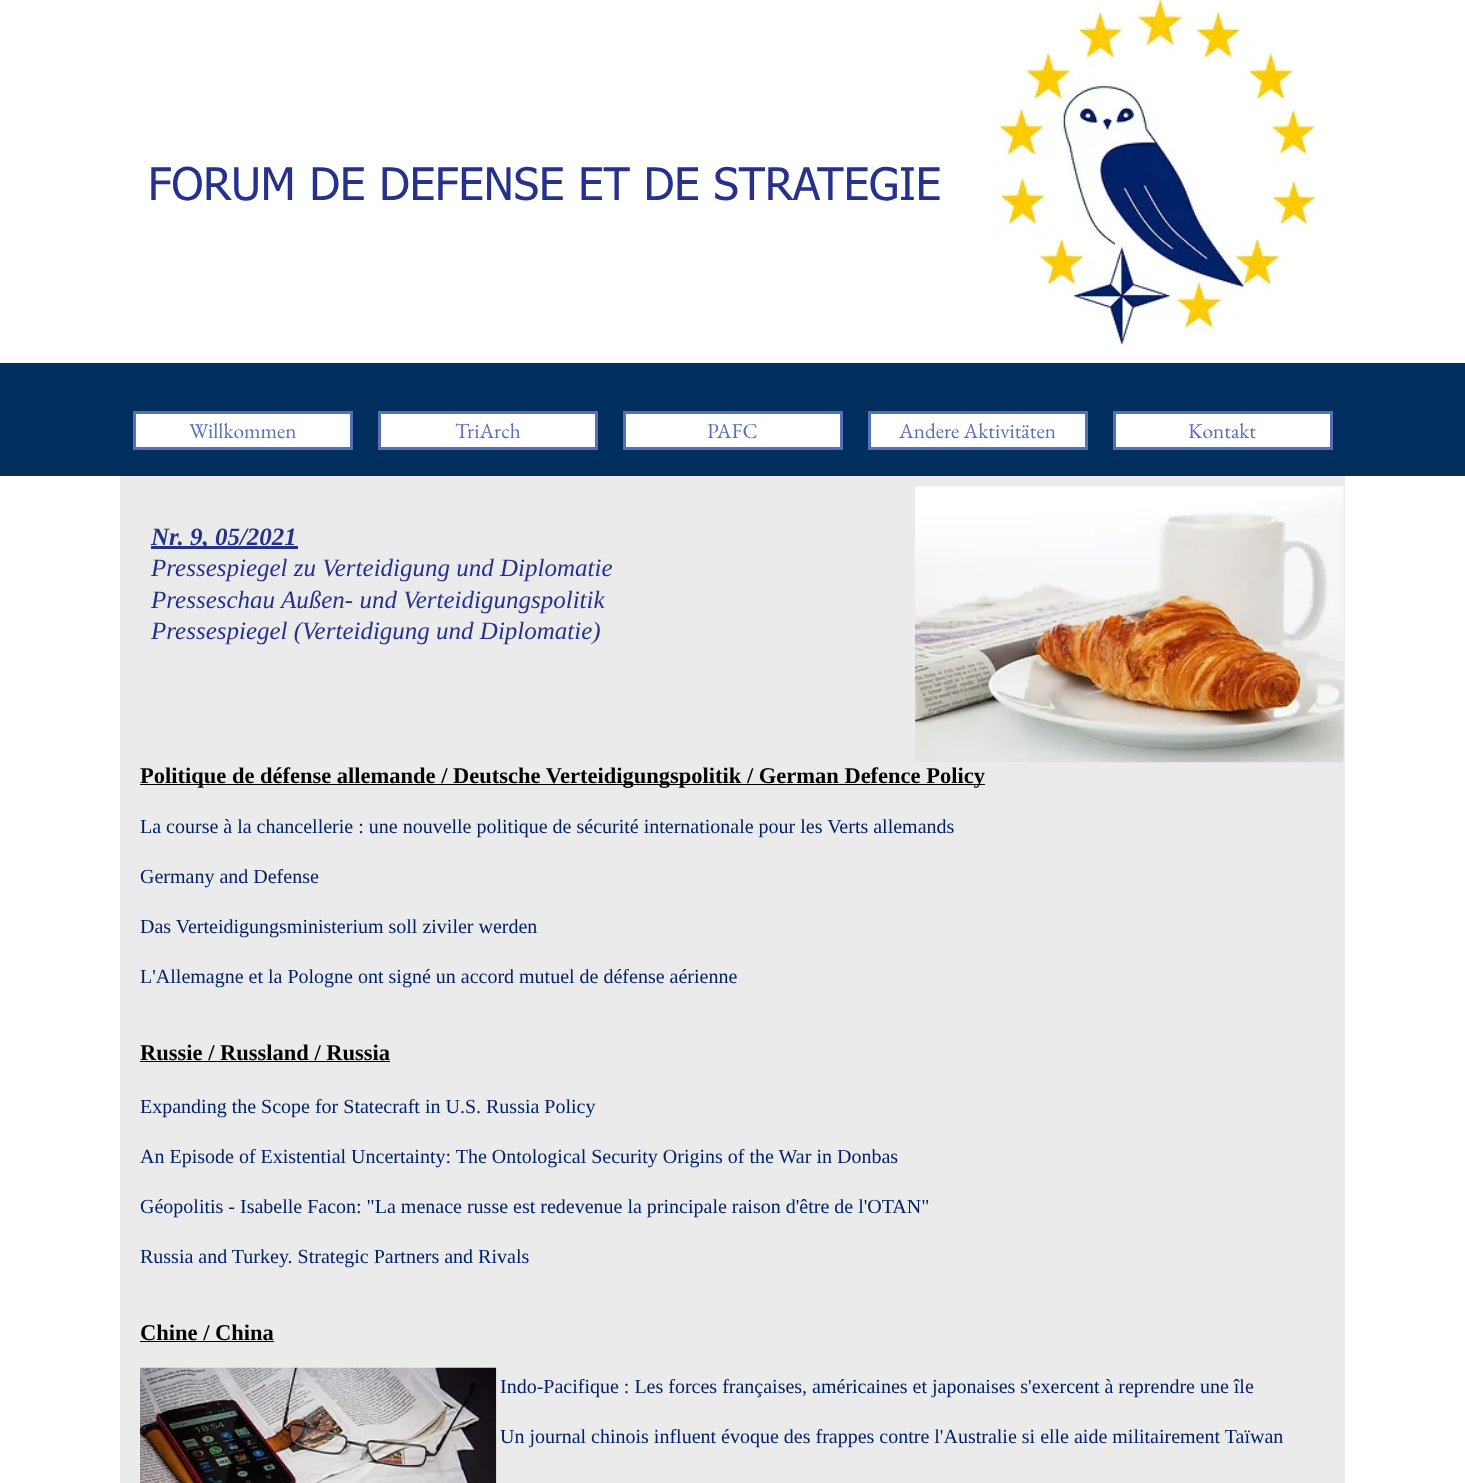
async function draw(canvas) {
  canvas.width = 1465
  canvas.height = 1483
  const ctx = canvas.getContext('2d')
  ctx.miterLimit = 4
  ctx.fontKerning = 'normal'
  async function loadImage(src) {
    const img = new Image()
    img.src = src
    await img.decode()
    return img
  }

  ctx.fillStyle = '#fff'
  ctx.fillRect(0, 0, 1465, 1483)
  ctx.font = '45px tahoma'
  ctx.fillStyle = '#25318d'
  ctx.fillText('FORUM DE DEFENSE ET DE STRATEGIE', 148, 200)
  ctx.drawImage(await loadImage('image0.png'), 995, 0, 321, 346)
  ctx.fillStyle = '#002e5d'
  ctx.fillRect(0, 363, 1465, 113)
  ctx.fillStyle = '#fff'
  ctx.beginPath()
  ctx.rect(134.5, 412.5, 217, 36)
  ctx.fill()
  ctx.strokeStyle = '#566fb8'
  ctx.lineWidth = 3
  ctx.stroke()
  ctx.font = '21.25px EB Garamond'
  ctx.fillStyle = '#566fb8'
  ctx.fillText('Willkommen', 189, 438)
  ctx.fillStyle = '#fff'
  ctx.beginPath()
  ctx.rect(379.5, 412.5, 217, 36)
  ctx.fill()
  ctx.stroke()
  ctx.fillStyle = '#566fb8'
  ctx.fillText('TriArch', 455, 438)
  ctx.fillStyle = '#fff'
  ctx.beginPath()
  ctx.rect(624.5, 412.5, 217, 36)
  ctx.fill()
  ctx.stroke()
  ctx.fillStyle = '#566fb8'
  ctx.fillText('PAFC', 707, 438)
  ctx.fillStyle = '#fff'
  ctx.beginPath()
  ctx.rect(869.5, 412.5, 217, 36)
  ctx.fill()
  ctx.stroke()
  ctx.fillStyle = '#566fb8'
  ctx.fillText('Andere Aktivitäten', 899, 438)
  ctx.fillStyle = '#fff'
  ctx.beginPath()
  ctx.rect(1114.5, 412.5, 217, 36)
  ctx.fill()
  ctx.stroke()
  ctx.fillStyle = '#566fb8'
  ctx.fillText('Kontakt', 1188, 438)
  ctx.fillStyle = '#ebebeb'
  ctx.fillRect(120, 476, 1225, 1007)
  ctx.fillStyle = '#25318d'
  ctx.fillRect(151, 546, 147, 3)
  ctx.font = 'italic bold 25px Liberation Serif'
  ctx.fillText('Nr. 9, 05/2021', 151, 545)
  ctx.font = 'italic 25px Liberation Serif'
  ctx.fillText('Pressespiegel zu Verteidigung und Diplomatie', 151, 576)
  ctx.fillText('Presseschau', 151, 608)
  ctx.fillText('Außen- und Verteidigungspolitik', 281, 608)
  ctx.fillText('Pressespiegel (Verteidigung und Diplomatie)', 151, 639)
  ctx.drawImage(await loadImage('image1.png'), 915, 486, 429, 277)
  ctx.fillStyle = '#000'
  ctx.fillRect(140, 784, 845, 1)
  ctx.font = 'bold 22.5px Liberation Serif'
  ctx.fillText('Politique de défense allemande / Deutsche Verteidigungspolitik / German Defence Policy', 140, 783)
  ctx.font = '20px Liberation Serif'
  ctx.fillStyle = '#012269'
  ctx.fillText('La course à la chancellerie : une nouvelle politique de sécurité internationale pour les Verts allemands', 140, 833)
  ctx.fillText('Germany and Defense', 140, 883)
  ctx.fillText('Das Verteidigungsministerium soll ziviler werden', 140, 933)
  ctx.fillText('L\'Allemagne et la Pologne ont signé un accord mutuel de défense aérienne', 140, 983)
  ctx.font = 'bold 22.5px Liberation Serif'
  ctx.fillStyle = '#000'
  ctx.fillText('Russie / Russland / Russia', 140, 1060)
  ctx.fillRect(140, 1061, 250, 1)
  ctx.font = '20px Liberation Serif'
  ctx.fillStyle = '#012269'
  ctx.fillText('Expanding the Scope for Statecraft in U.S. Russia Policy', 140, 1113)
  ctx.fillText('An Episode of Existential Uncertainty: The Ontological Security Origins of the War in Donbas', 140, 1163)
  ctx.fillText('Géopolitis - Isabelle Facon: "La menace russe est redevenue la principale raison d\'être de l\'OTAN"', 140, 1213)
  ctx.fillText('Russia and Turkey. Strategic Partners and Rivals', 140, 1263)
  ctx.font = 'bold 22.5px Liberation Serif'
  ctx.fillStyle = '#000'
  ctx.fillText('Chine / China', 140, 1340)
  ctx.fillRect(140, 1341, 134, 1)
  ctx.font = '20px Liberation Serif'
  ctx.fillStyle = '#012269'
  ctx.fillText('Indo-Pacifique : Les forces françaises, américaines et japonaises s\'exercent à reprendre une île', 500, 1393)
  ctx.fillText('Un journal chinois influent évoque des frappes contre l\'Australie si elle aide militairement Taïwan', 500, 1443)
  ctx.drawImage(await loadImage('image2.png'), 140, 1367, 357, 116)
}

draw(document.querySelector('canvas'))
